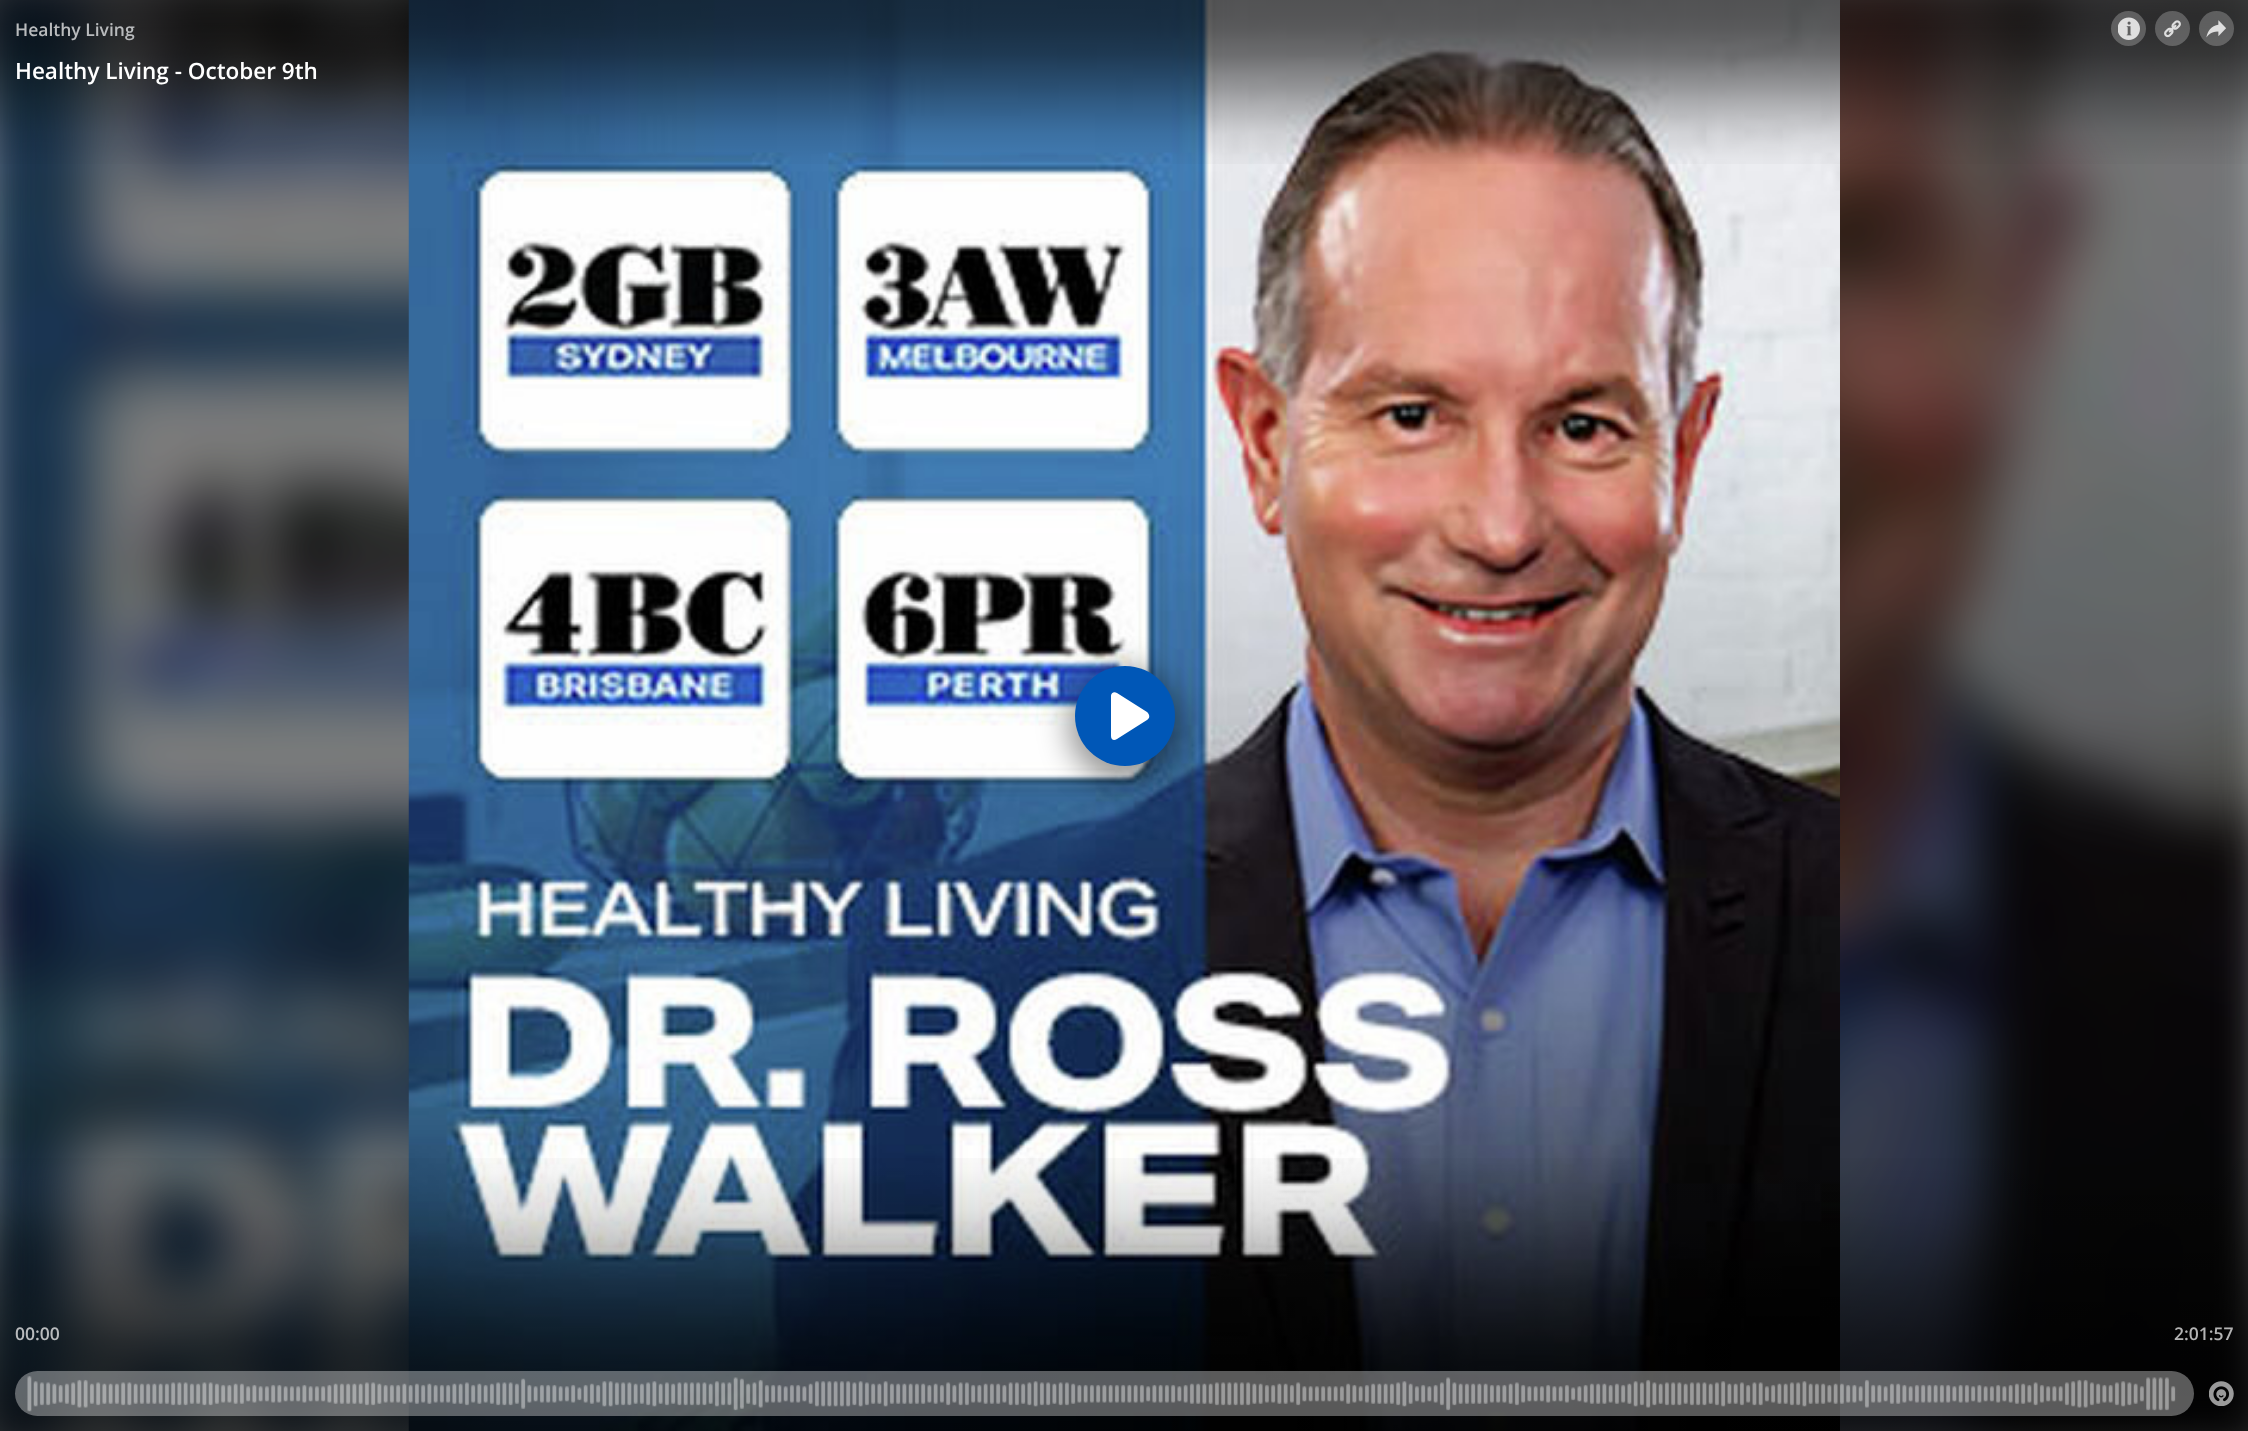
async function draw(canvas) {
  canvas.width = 2248
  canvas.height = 1431
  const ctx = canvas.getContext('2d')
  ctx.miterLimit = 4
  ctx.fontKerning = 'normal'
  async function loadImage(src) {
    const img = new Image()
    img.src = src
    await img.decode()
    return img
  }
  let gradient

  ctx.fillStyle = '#fff'
  ctx.fillRect(0, 0, 2248, 1431)
  ctx.drawImage(await loadImage('image0.png'), 0, 0, 2248, 1431)
  ctx.drawImage(await loadImage('image1.png'), 408, 0, 1432, 1431)
  gradient = ctx.createLinearGradient(1124, 0, 1124, 188)
  gradient.addColorStop(0, '#000000a6')
  gradient.addColorStop(0.08, '#000000a3')
  gradient.addColorStop(0.15, '#0000009e')
  gradient.addColorStop(0.22, '#00000094')
  gradient.addColorStop(0.29, '#0000008a')
  gradient.addColorStop(0.35, '#0000007a')
  gradient.addColorStop(0.41, '#0000006b')
  gradient.addColorStop(0.47, '#0000005c')
  gradient.addColorStop(0.53, '#0000004a')
  gradient.addColorStop(0.59, '#0000003b')
  gradient.addColorStop(0.65, '#0000002b')
  gradient.addColorStop(0.71, '#0000001c')
  gradient.addColorStop(0.78, '#00000012')
  gradient.addColorStop(0.84, '#00000008')
  gradient.addColorStop(0.92, '#00000003')
  gradient.addColorStop(1, '#00000000')
  ctx.fillStyle = gradient
  ctx.fillRect(0, 0, 2248, 164)
  ctx.font = '600 17.5px Open Sans'
  ctx.fillStyle = '#b9bbbd'
  ctx.fillText('Healthy Living', 15, 36)
  ctx.fillStyle = '#ffffff3d'
  ctx.beginPath()
  ctx.arc(2128.5, 28.5, 17.5, 0, 2 * Math.PI)
  ctx.fill()
  ctx.drawImage(await loadImage('image2.png'), 2118, 17, 22, 23)
  ctx.beginPath()
  ctx.arc(2172.5, 28.5, 17.5, 0, 2 * Math.PI)
  ctx.fill()
  ctx.drawImage(await loadImage('image3.png'), 2164, 20, 17, 18)
  ctx.beginPath()
  ctx.arc(2216.5, 28.5, 17.5, 0, 2 * Math.PI)
  ctx.fill()
  ctx.drawImage(await loadImage('image4.png'), 2206, 20, 20, 18)
  ctx.font = '600 22.5px Open Sans'
  ctx.fillStyle = '#fff'
  ctx.fillText('Healthy Living - October 9th', 15, 79)
  gradient = ctx.createLinearGradient(1124, 1431, 1124, 1119)
  gradient.addColorStop(0, '#000000a6')
  gradient.addColorStop(0.08, '#000000a3')
  gradient.addColorStop(0.15, '#0000009e')
  gradient.addColorStop(0.23, '#00000094')
  gradient.addColorStop(0.29, '#0000008a')
  gradient.addColorStop(0.35, '#0000007a')
  gradient.addColorStop(0.41, '#0000006b')
  gradient.addColorStop(0.47, '#0000005c')
  gradient.addColorStop(0.53, '#0000004a')
  gradient.addColorStop(0.59, '#0000003b')
  gradient.addColorStop(0.65, '#0000002b')
  gradient.addColorStop(0.71, '#0000001c')
  gradient.addColorStop(0.78, '#00000012')
  gradient.addColorStop(0.84, '#00000008')
  gradient.addColorStop(0.92, '#00000003')
  gradient.addColorStop(1, '#00000000')
  ctx.fillStyle = gradient
  ctx.fillRect(0, 1158, 2248, 273)
  ctx.font = '600 17.5px Open Sans'
  ctx.fillStyle = '#b9bbbd'
  ctx.fillText('00:00', 15, 1340)
  ctx.fillStyle = '#b3b3b3'
  ctx.fillText('2:01:57', 2174, 1340)
  ctx.fillStyle = '#ffffff59'
  ctx.beginPath()
  ctx.roundRect(15, 1371, 2179, 45, 22.5)
  ctx.fill()
  ctx.drawImage(await loadImage('image5.png'), 27, 1376, 1274, 36)
  ctx.drawImage(await loadImage('image6.png'), 1302, 1377, 874, 34)
  ctx.drawImage(await loadImage('image7.png'), 2209, 1381, 25, 25)
  ctx.fillStyle = '#00000066'
  ctx.filter = 'blur(15px)'
  ctx.beginPath()
  ctx.roundRect(1068, 668, 115, 115, 57.5)
  ctx.fill()
  ctx.filter = 'none'
  ctx.fillStyle = '#0057b7'
  ctx.beginPath()
  ctx.arc(1125, 716, 50, 0, 2 * Math.PI)
  ctx.fill()
  ctx.fillStyle = '#fff'
  ctx.beginPath()
  ctx.moveTo(1117, 739)
  ctx.bezierCurveTo(1114, 741, 1111, 740, 1111, 736)
  ctx.lineTo(1111, 696)
  ctx.bezierCurveTo(1111, 693, 1114, 691, 1117, 693)
  ctx.lineTo(1147, 712)
  ctx.bezierCurveTo(1150, 715, 1150, 718, 1147, 720)
  ctx.closePath()
  ctx.fill()
}

draw(document.querySelector('canvas'))
